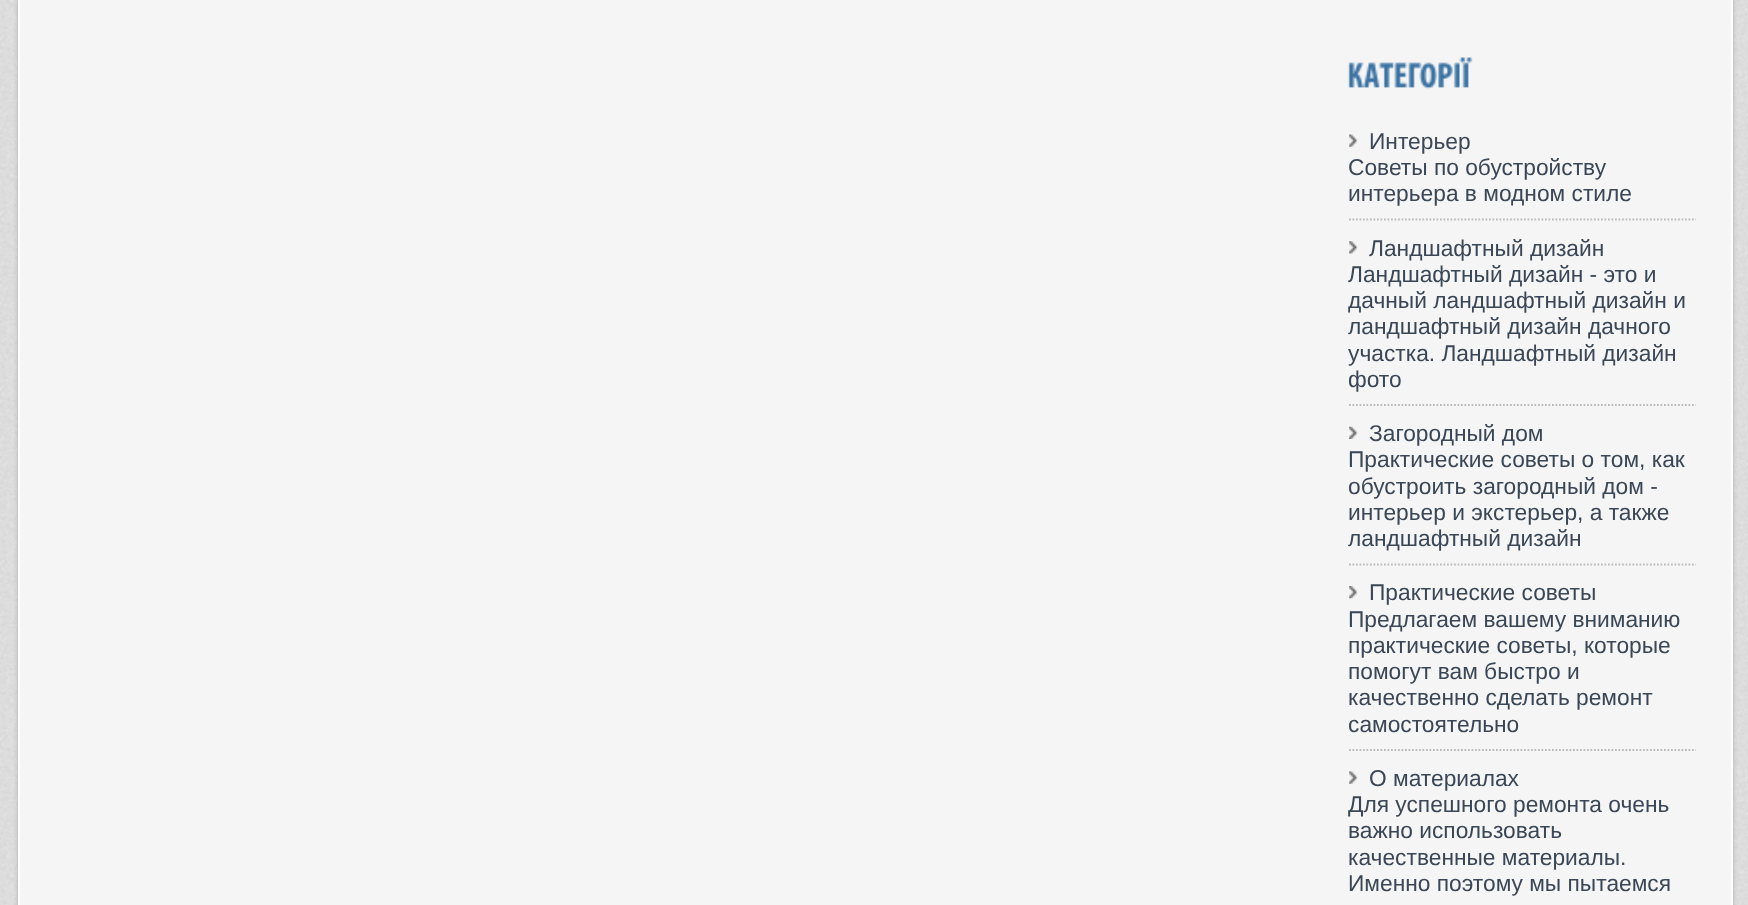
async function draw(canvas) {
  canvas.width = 1748
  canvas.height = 905
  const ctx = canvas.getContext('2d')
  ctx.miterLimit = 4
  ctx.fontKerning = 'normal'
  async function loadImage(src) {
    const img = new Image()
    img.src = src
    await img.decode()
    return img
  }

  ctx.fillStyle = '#fff'
  ctx.fillRect(0, 0, 1748, 905)
  ctx.drawImage(await loadImage('image0.png'), 0, 0, 1748, 905)
  ctx.fillStyle = '#00000033'
  ctx.filter = 'blur(2.5px)'
  ctx.beginPath()
  ctx.rect(18, -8, 1715, 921)
  ctx.fill()
  ctx.filter = 'none'
  ctx.fillStyle = '#f5f5f5'
  ctx.beginPath()
  ctx.rect(19, -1, 1713, 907)
  ctx.fill()
  ctx.strokeStyle = '#fff'
  ctx.lineWidth = 2
  ctx.stroke()
  ctx.drawImage(await loadImage('image1.png'), 1347, 57, 126, 33)
  ctx.beginPath()
  ctx.moveTo(1349, 219.5)
  ctx.lineTo(1696, 219.5)
  ctx.strokeStyle = '#bbb'
  ctx.lineWidth = 1.8
  ctx.setLineDash([1.75, 1.75])
  ctx.stroke()
  ctx.drawImage(await loadImage('image2.png'), 1349, 134, 9, 13)
  ctx.font = '22.75px Liberation Sans'
  ctx.fillStyle = '#3a4756'
  ctx.fillText('Интерьер', 1369, 149)
  ctx.fillText('Советы по обустройству', 1348, 175)
  ctx.fillText('интерьера в модном стиле', 1348, 201)
  ctx.beginPath()
  ctx.moveTo(1349, 405)
  ctx.lineTo(1696, 405)
  ctx.stroke()
  ctx.drawImage(await loadImage('image3.png'), 1349, 241, 9, 13)
  ctx.fillText('Ландшафтный дизайн', 1369, 256)
  ctx.fillText('Ландшафтный дизайн - это и', 1348, 282)
  ctx.fillText('дачный ландшафтный дизайн и', 1348, 308)
  ctx.fillText('ландшафтный дизайн дачного', 1348, 334)
  ctx.fillText('участка. Ландшафтный дизайн', 1348, 361)
  ctx.fillText('фото', 1348, 387)
  ctx.beginPath()
  ctx.moveTo(1349, 564.5)
  ctx.lineTo(1696, 564.5)
  ctx.stroke()
  ctx.drawImage(await loadImage('image4.png'), 1349, 426, 9, 13)
  ctx.fillText('Загородный дом', 1369, 441)
  ctx.fillText('Практические советы о том, как', 1348, 467)
  ctx.fillText('обустроить загородный дом -', 1348, 494)
  ctx.fillText('интерьер и экстерьер, а также', 1348, 520)
  ctx.fillText('ландшафтный дизайн', 1348, 546)
  ctx.beginPath()
  ctx.moveTo(1349, 750)
  ctx.lineTo(1696, 750)
  ctx.stroke()
  ctx.drawImage(await loadImage('image5.png'), 1349, 586, 9, 13)
  ctx.fillText('Практические советы', 1369, 600)
  ctx.fillText('Предлагаем вашему вниманию', 1348, 627)
  ctx.fillText('практические советы, которые', 1348, 653)
  ctx.fillText('помогут вам быстро и', 1348, 679)
  ctx.fillText('качественно сделать ремонт', 1348, 705)
  ctx.fillText('самостоятельно', 1348, 732)
  ctx.drawImage(await loadImage('image2.png'), 1349, 771, 9, 13)
  ctx.fillText('О материалах', 1369, 786)
  ctx.fillText('Для успешного ремонта очень', 1348, 812)
  ctx.fillText('важно использовать', 1348, 838)
  ctx.fillText('качественные материалы.', 1348, 865)
  ctx.fillText('Именно поэтому мы пытаемся', 1348, 891)
}

draw(document.querySelector('canvas'))
